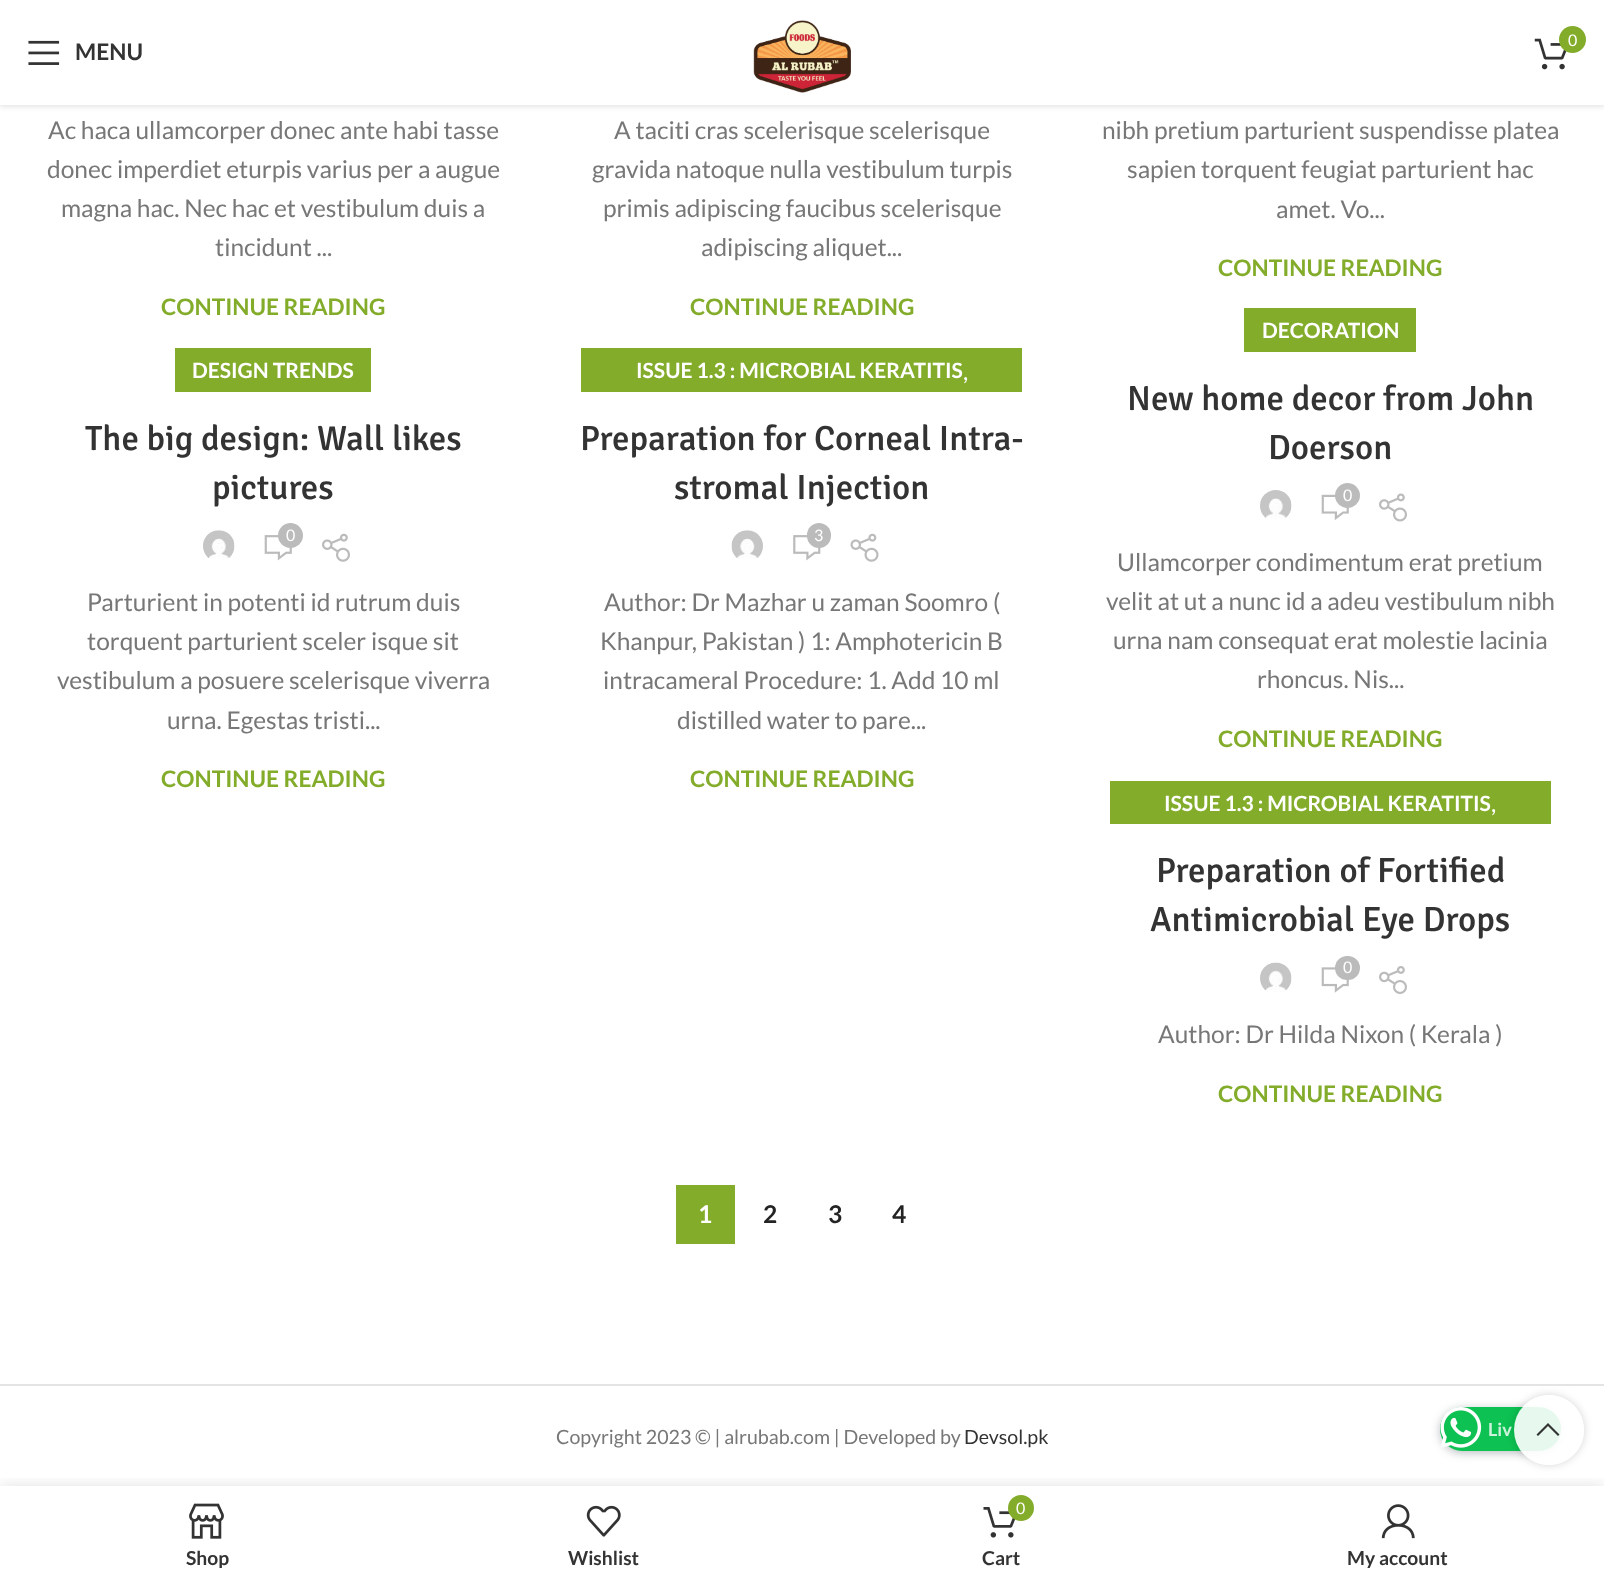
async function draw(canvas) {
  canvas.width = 1604
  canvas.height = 1581
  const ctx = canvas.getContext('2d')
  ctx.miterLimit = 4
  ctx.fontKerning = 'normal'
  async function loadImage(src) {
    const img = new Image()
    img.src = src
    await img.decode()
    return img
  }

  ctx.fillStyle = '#fff'
  ctx.fillRect(0, 0, 1604, 1581)
  ctx.fillStyle = '#0000001a'
  ctx.filter = 'blur(2.5px)'
  ctx.beginPath()
  ctx.rect(0, 2, 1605, 105)
  ctx.fill()
  ctx.filter = 'none'
  ctx.fillStyle = '#fff'
  ctx.fillRect(0, 0, 1604, 105)
  ctx.drawImage(await loadImage('image0.png'), 753, 20, 98, 73)
  ctx.drawImage(await loadImage('image1.png'), 1534, 38, 33, 32)
  ctx.fillStyle = '#83ac2b'
  ctx.beginPath()
  ctx.arc(1572.5, 39.5, 13.5, 0, 2 * Math.PI)
  ctx.fill()
  ctx.font = '16px Lato'
  ctx.fillStyle = '#fff'
  ctx.fillText('0', 1568, 46)
  ctx.drawImage(await loadImage('image2.png'), 28, 40, 32, 25)
  ctx.font = 'bold 22.75px Lato'
  ctx.fillStyle = '#333'
  ctx.fillText('MENU', 75, 60)
  ctx.font = '24.5px Lato'
  ctx.fillStyle = '#777'
  ctx.fillText('Ac haca ullamcorper donec ante habi tasse', 48, 139)
  ctx.fillText('donec imperdiet eturpis varius per a augue', 47, 178)
  ctx.fillText('magna hac. Nec hac et vestibulum duis a', 61, 217)
  ctx.fillText('tincidunt ...', 215, 256)
  ctx.font = 'bold 22.75px Lato'
  ctx.fillStyle = '#83ac2b'
  ctx.fillText('CONTINUE READING', 161, 315)
  ctx.font = '24.5px Lato'
  ctx.fillStyle = '#777'
  ctx.fillText('A taciti cras scelerisque scelerisque', 614, 139)
  ctx.fillText('gravida natoque nulla vestibulum turpis', 592, 178)
  ctx.fillText('primis adipiscing faucibus scelerisque', 603, 217)
  ctx.fillText('adipiscing aliquet...', 701, 256)
  ctx.font = 'bold 22.75px Lato'
  ctx.fillStyle = '#83ac2b'
  ctx.fillText('CONTINUE READING', 690, 315)
  ctx.font = '24.5px Lato'
  ctx.fillStyle = '#777'
  ctx.fillText('nibh pretium parturient suspendisse platea', 1102, 139)
  ctx.fillText('sapien torquent feugiat parturient hac', 1127, 178)
  ctx.fillText('amet. Vo...', 1276, 218)
  ctx.font = 'bold 22.75px Lato'
  ctx.fillStyle = '#83ac2b'
  ctx.fillText('CONTINUE READING', 1218, 276)
  ctx.fillRect(175, 348, 196, 44)
  ctx.font = 'bold 21px Lato'
  ctx.fillStyle = '#fff'
  ctx.fillText('DESIGN TRENDS', 192, 378)
  ctx.font = '500 35px Signika'
  ctx.fillStyle = '#333'
  ctx.fillText('The big design: Wall likes', 85, 450)
  ctx.fillText('pictures', 212, 499)
  ctx.drawImage(await loadImage('image3.png'), 203, 530, 32, 29)
  ctx.drawImage(await loadImage('image4.png'), 264, 535, 28, 26)
  ctx.fillStyle = '#bbb'
  ctx.beginPath()
  ctx.arc(290.5, 535.5, 12.5, 0, 2 * Math.PI)
  ctx.fill()
  ctx.font = '16px Lato'
  ctx.fillStyle = '#fff'
  ctx.fillText('0', 286, 541)
  ctx.drawImage(await loadImage('image5.png'), 322, 533, 28, 29)
  ctx.font = '24.5px Lato'
  ctx.fillStyle = '#777'
  ctx.fillText('Parturient in potenti id rutrum duis', 87, 611)
  ctx.fillText('torquent parturient sceler isque sit', 87, 650)
  ctx.fillText('vestibulum a posuere scelerisque viverra', 57, 689)
  ctx.fillText('urna. Egestas tristi...', 167, 729)
  ctx.font = 'bold 22.75px Lato'
  ctx.fillStyle = '#83ac2b'
  ctx.fillText('CONTINUE READING', 161, 787)
  ctx.fillRect(581, 348, 441, 44)
  ctx.font = 'bold 21px Lato'
  ctx.fillStyle = '#fff'
  ctx.fillText('ISSUE 1.3 : MICROBIAL KERATITIS', 636, 378)
  ctx.font = '24.5px Lato'
  ctx.fillText(',', 963, 380)
  ctx.font = '500 35px Signika'
  ctx.fillStyle = '#333'
  ctx.fillText('Preparation for Corneal Intra-', 580, 450)
  ctx.fillText('stromal Injection', 674, 499)
  ctx.drawImage(await loadImage('image6.png'), 731, 530, 32, 29)
  ctx.drawImage(await loadImage('image7.png'), 793, 535, 28, 26)
  ctx.fillStyle = '#bbb'
  ctx.beginPath()
  ctx.roundRect(807, 523, 24, 25, 12)
  ctx.fill()
  ctx.font = '16px Lato'
  ctx.fillStyle = '#fff'
  ctx.fillText('3', 814, 541)
  ctx.drawImage(await loadImage('image8.png'), 850, 533, 29, 29)
  ctx.font = '24.5px Lato'
  ctx.fillStyle = '#777'
  ctx.fillText('Author: Dr Mazhar u zaman Soomro (', 604, 611)
  ctx.fillText('Khanpur, Pakistan ) 1: Amphotericin B', 600, 650)
  ctx.fillText('intracameral Procedure: 1. Add 10 ml', 603, 689)
  ctx.fillText('distilled water to pare...', 677, 729)
  ctx.font = 'bold 22.75px Lato'
  ctx.fillStyle = '#83ac2b'
  ctx.fillText('CONTINUE READING', 690, 787)
  ctx.fillRect(1244, 308, 172, 44)
  ctx.font = 'bold 21px Lato'
  ctx.fillStyle = '#fff'
  ctx.fillText('DECORATION', 1262, 338)
  ctx.font = '500 35px Signika'
  ctx.fillStyle = '#333'
  ctx.fillText('New home decor from John', 1127, 410)
  ctx.fillText('Doerson', 1268, 459)
  ctx.drawImage(await loadImage('image9.png'), 1260, 490, 32, 29)
  ctx.drawImage(await loadImage('image10.png'), 1321, 494, 28, 26)
  ctx.fillStyle = '#bbb'
  ctx.beginPath()
  ctx.arc(1347.5, 495.5, 12.5, 0, 2 * Math.PI)
  ctx.fill()
  ctx.font = '16px Lato'
  ctx.fillStyle = '#fff'
  ctx.fillText('0', 1343, 501)
  ctx.drawImage(await loadImage('image11.png'), 1379, 493, 28, 29)
  ctx.font = '24.5px Lato'
  ctx.fillStyle = '#777'
  ctx.fillText('Ullamcorper condimentum erat pretium', 1117, 571)
  ctx.fillText('velit at ut a nunc id a adeu vestibulum nibh', 1106, 610)
  ctx.fillText('urna nam consequat erat molestie lacinia', 1113, 649)
  ctx.fillText('rhoncus. Nis...', 1257, 688)
  ctx.font = 'bold 22.75px Lato'
  ctx.fillStyle = '#83ac2b'
  ctx.fillText('CONTINUE READING', 1218, 747)
  ctx.fillRect(1110, 781, 441, 43)
  ctx.font = 'bold 21px Lato'
  ctx.fillStyle = '#fff'
  ctx.fillText('ISSUE 1.3 : MICROBIAL KERATITIS', 1164, 811)
  ctx.font = '24.5px Lato'
  ctx.fillText(',', 1491, 812)
  ctx.font = '500 35px Signika'
  ctx.fillStyle = '#333'
  ctx.fillText('Preparation of Fortified', 1156, 882)
  ctx.fillText('Antimicrobial Eye Drops', 1150, 931)
  ctx.drawImage(await loadImage('image12.png'), 1260, 962, 32, 30)
  ctx.drawImage(await loadImage('image13.png'), 1321, 967, 28, 26)
  ctx.fillStyle = '#bbb'
  ctx.beginPath()
  ctx.roundRect(1335, 956, 25, 24, 12)
  ctx.fill()
  ctx.font = '16px Lato'
  ctx.fillStyle = '#fff'
  ctx.fillText('0', 1343, 973)
  ctx.drawImage(await loadImage('image14.png'), 1379, 966, 28, 28)
  ctx.font = '24.5px Lato'
  ctx.fillStyle = '#777'
  ctx.fillText('Author: Dr Hilda Nixon ( Kerala )', 1158, 1043)
  ctx.font = 'bold 22.75px Lato'
  ctx.fillStyle = '#83ac2b'
  ctx.fillText('CONTINUE READING', 1218, 1102)
  ctx.fillRect(676, 1185, 59, 59)
  ctx.font = 'bold 24.5px Lato'
  ctx.fillStyle = '#fff'
  ctx.fillText('1', 698, 1223)
  ctx.fillStyle = '#242424'
  ctx.fillText('2', 763, 1223)
  ctx.fillText('3', 828, 1223)
  ctx.fillText('4', 892, 1223)
  ctx.fillStyle = '#e4e4e4'
  ctx.fillRect(0, 1384, 1604, 2)
  ctx.font = '19.6px Lato'
  ctx.fillStyle = '#777'
  ctx.fillText('Copyright 2023 © | alrubab.com | Developed by', 556, 1444)
  ctx.fillStyle = '#333'
  ctx.fillText('Devsol.pk', 964, 1444)
  ctx.fillStyle = '#39494c59'
  ctx.filter = 'blur(5px)'
  ctx.beginPath()
  ctx.roundRect(1440, 1409, 121, 44, 22)
  ctx.fill()
  ctx.filter = 'none'
  ctx.fillStyle = '#0dc152'
  ctx.beginPath()
  ctx.roundRect(1440, 1407, 121, 44, 22)
  ctx.fill()
  ctx.save()
  ctx.beginPath()
  ctx.moveTo(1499, 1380)
  ctx.lineTo(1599, 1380)
  ctx.lineTo(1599, 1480)
  ctx.lineTo(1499, 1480)
  ctx.closePath()
  ctx.moveTo(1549, 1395)
  ctx.bezierCurveTo(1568.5, 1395, 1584, 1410.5, 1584, 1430)
  ctx.bezierCurveTo(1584, 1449.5, 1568.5, 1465, 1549, 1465)
  ctx.bezierCurveTo(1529.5, 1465, 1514, 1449.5, 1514, 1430)
  ctx.bezierCurveTo(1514, 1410.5, 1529.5, 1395, 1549, 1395)
  ctx.closePath()
  ctx.clip('evenodd')
  ctx.fillStyle = '#0000002b'
  ctx.filter = 'blur(4.5px)'
  ctx.beginPath()
  ctx.roundRect(1514, 1395, 70, 70, 35)
  ctx.fill()
  ctx.filter = 'none'
  ctx.restore()
  ctx.fillStyle = '#ffffffe6'
  ctx.beginPath()
  ctx.arc(1549, 1430, 35, 0, 2 * Math.PI)
  ctx.fill()
  ctx.fillStyle = '#333'
  ctx.beginPath()
  ctx.moveTo(1558, 1436)
  ctx.lineTo(1559.5, 1434.5)
  ctx.lineTo(1548, 1423)
  ctx.lineTo(1536.5, 1434.5)
  ctx.lineTo(1538, 1436)
  ctx.lineTo(1548, 1426)
  ctx.closePath()
  ctx.fill()
  ctx.drawImage(await loadImage('image15.png'), 1440, 1407, 42, 41)
  ctx.font = 'bold 18px Lato'
  ctx.fillStyle = '#cef3dc'
  ctx.fillText('Liv', 1488, 1436)
  ctx.save()
  ctx.beginPath()
  ctx.rect(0, 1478, 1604, 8)
  ctx.clip()
  ctx.fillStyle = '#0000001f'
  ctx.filter = 'blur(8px)'
  ctx.beginPath()
  ctx.rect(0, 1486, 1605, 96)
  ctx.fill()
  ctx.filter = 'none'
  ctx.restore()
  ctx.drawImage(await loadImage('image16.png'), 189, 1503, 35, 36)
  ctx.save()
  ctx.beginPath()
  ctx.rect(26, 1545, 363, 23)
  ctx.clip()
  ctx.font = 'bold 19.25px Lato'
  ctx.fillStyle = '#333'
  ctx.fillText('Shop', 186, 1565)
  ctx.restore()
  ctx.drawImage(await loadImage('image17.png'), 586, 1505, 35, 32)
  ctx.font = 'bold 19.25px Lato'
  ctx.fillStyle = '#333'
  ctx.fillText('Wishlist', 568, 1565)
  ctx.drawImage(await loadImage('image18.png'), 983, 1507, 33, 31)
  ctx.fillStyle = '#83ac2b'
  ctx.beginPath()
  ctx.arc(1021, 1508, 13, 0, 2 * Math.PI)
  ctx.fill()
  ctx.font = '16px Lato'
  ctx.fillStyle = '#fff'
  ctx.fillText('0', 1016, 1514)
  ctx.font = 'bold 19.25px Lato'
  ctx.fillStyle = '#333'
  ctx.fillText('Cart', 982, 1565)
  ctx.drawImage(await loadImage('image19.png'), 1381, 1504, 34, 35)
  ctx.save()
  ctx.beginPath()
  ctx.rect(1216, 1545, 363, 23)
  ctx.clip()
  ctx.fillText('My account', 1347, 1565)
  ctx.restore()
}

draw(document.querySelector('canvas'))
